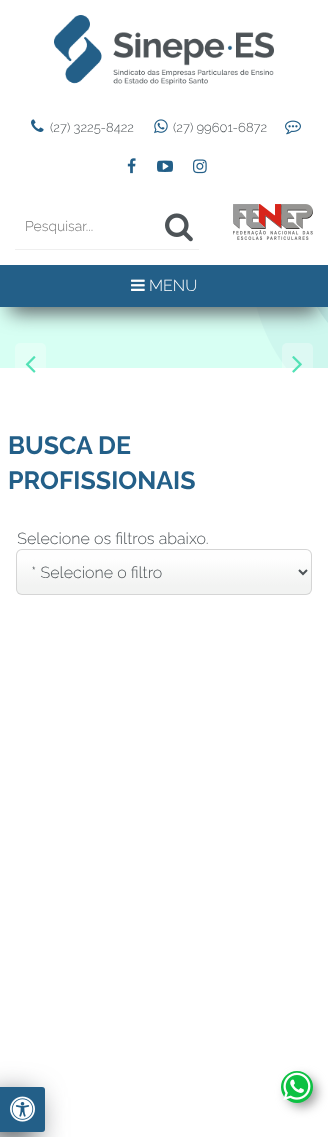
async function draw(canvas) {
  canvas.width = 328
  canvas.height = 1137
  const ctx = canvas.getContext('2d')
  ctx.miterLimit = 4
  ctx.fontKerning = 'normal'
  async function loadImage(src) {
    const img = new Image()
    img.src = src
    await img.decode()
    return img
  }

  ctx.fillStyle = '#fff'
  ctx.fillRect(0, 0, 328, 1137)
  ctx.drawImage(await loadImage('image0.png'), 54, 15, 220, 70)
  ctx.drawImage(await loadImage('image1.png'), 31, 119, 13, 13)
  ctx.font = '300 13px Raleway'
  ctx.fillStyle = '#4d5357'
  ctx.fillText('(27) 3225-8422', 50, 132)
  ctx.drawImage(await loadImage('image2.png'), 154, 119, 14, 15)
  ctx.fillText('(27) 99601-6872', 173, 132)
  ctx.drawImage(await loadImage('image3.png'), 285, 120, 16, 15)
  ctx.drawImage(await loadImage('image4.png'), 127, 158, 9, 16)
  ctx.drawImage(await loadImage('image5.png'), 157, 160, 16, 12)
  ctx.drawImage(await loadImage('image6.png'), 193, 159, 14, 15)
  ctx.fillStyle = '#efefef'
  ctx.fillRect(15, 249, 184, 1)
  ctx.font = '300 14px Raleway'
  ctx.fillStyle = '#757575'
  ctx.fillText('Pesquisar...', 25, 231)
  ctx.drawImage(await loadImage('image7.png'), 165, 213, 28, 29)
  ctx.drawImage(await loadImage('image8.png'), 233, 204, 80, 36)
  ctx.drawImage(await loadImage('image9.png'), 0, 307, 328, 61)
  ctx.fillStyle = '#4d5357'
  ctx.filter = 'blur(10px)'
  ctx.beginPath()
  ctx.rect(10, 290, 308, 22)
  ctx.fill()
  ctx.filter = 'none'
  ctx.fillStyle = '#235f88'
  ctx.fillRect(0, 265, 328, 42)
  ctx.drawImage(await loadImage('image10.png'), 131, 279, 14, 12)
  ctx.font = '300 16px Raleway'
  ctx.fillStyle = '#fff'
  ctx.fillText('MENU', 149, 291)
  ctx.fillStyle = '#ffffff4d'
  ctx.beginPath()
  ctx.roundRect(15, 343, 31, 42, 5)
  ctx.fill()
  ctx.drawImage(await loadImage('image11.png'), 25, 356, 11, 17)
  ctx.beginPath()
  ctx.roundRect(282, 343, 31, 42, 5)
  ctx.fill()
  ctx.drawImage(await loadImage('image12.png'), 292, 356, 10, 17)
  ctx.font = 'bold 25px Raleway'
  ctx.fillStyle = '#235f88'
  ctx.fillText('BUSCA DE', 8, 454)
  ctx.fillText('PROFISSIONAIS', 8, 489)
  ctx.drawImage(await loadImage('image13.png'), 16, 532, 296, 63)
  ctx.fillStyle = '#4d5357'
  ctx.filter = 'blur(15px)'
  ctx.beginPath()
  ctx.roundRect(-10, 1097, 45, 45, 3)
  ctx.fill()
  ctx.filter = 'none'
  ctx.fillStyle = '#235f88'
  ctx.beginPath()
  ctx.roundRect(0, 1087, 45, 45, [0, 3, 3, 0])
  ctx.fill()
  ctx.drawImage(await loadImage('image14.png'), 10, 1096, 25, 26)
  ctx.fillStyle = '#9c9c9c'
  ctx.filter = 'blur(5.5px)'
  ctx.beginPath()
  ctx.roundRect(287, 1077, 30, 30, 15)
  ctx.fill()
  ctx.filter = 'none'
  ctx.fillStyle = '#0dc143'
  ctx.beginPath()
  ctx.arc(297, 1087, 16, 0, 2 * Math.PI)
  ctx.fill()
  ctx.drawImage(await loadImage('image15.png'), 283, 1072, 28, 28)
}

draw(document.querySelector('canvas'))
